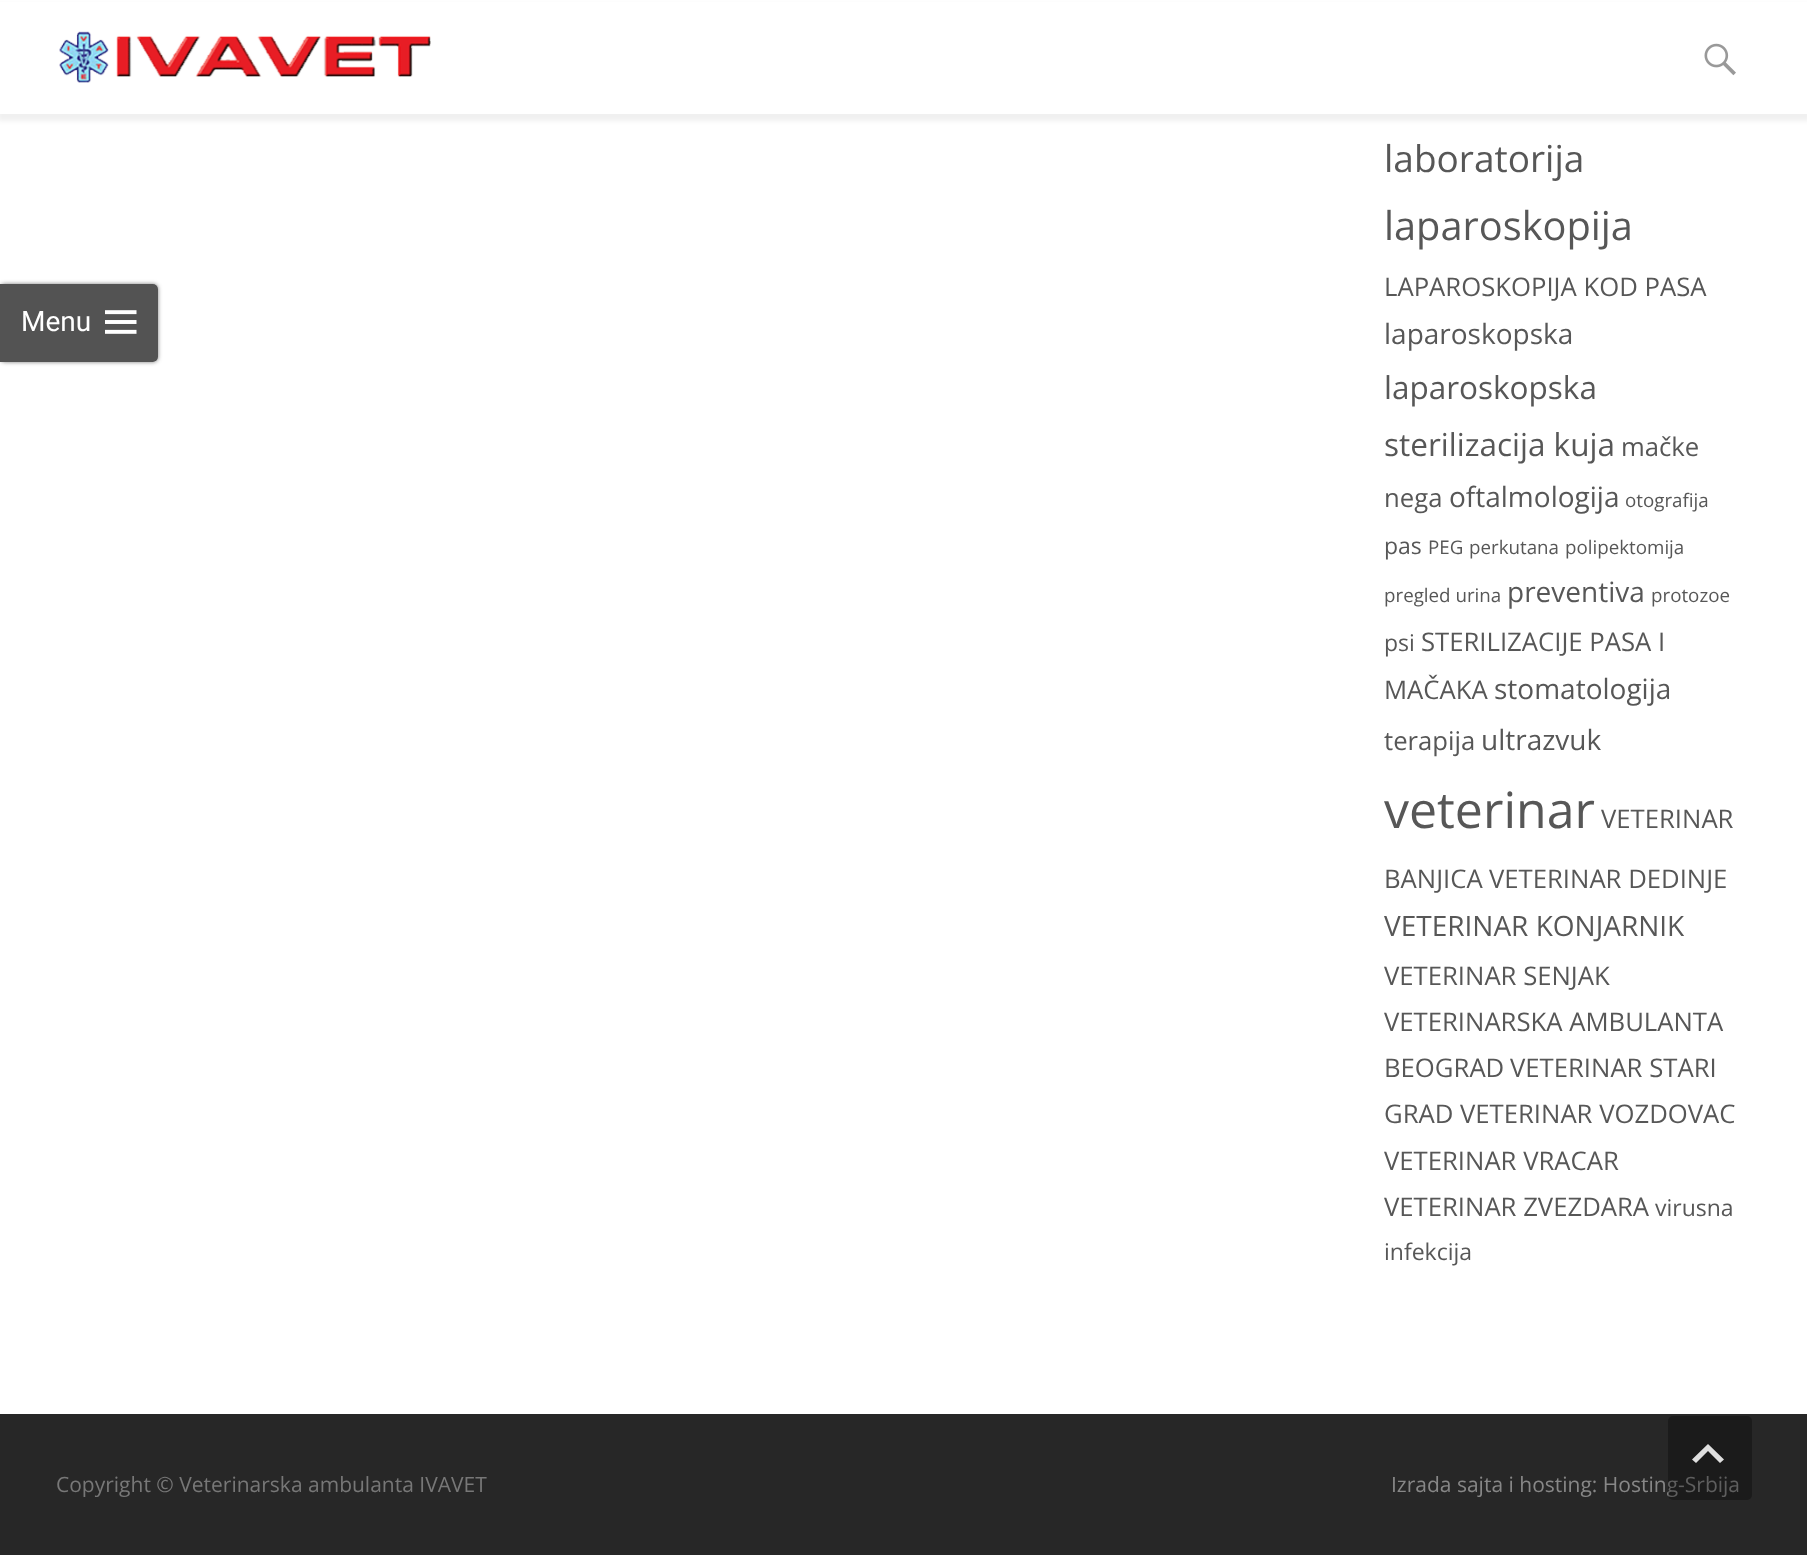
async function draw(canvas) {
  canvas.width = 1807
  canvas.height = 1555
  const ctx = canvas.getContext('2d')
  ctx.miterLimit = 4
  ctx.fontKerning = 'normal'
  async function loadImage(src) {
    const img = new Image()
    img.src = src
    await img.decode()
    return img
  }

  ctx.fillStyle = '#fff'
  ctx.fillRect(0, 0, 1807, 1555)
  ctx.fillStyle = '#0000000f'
  ctx.filter = 'blur(2px)'
  ctx.beginPath()
  ctx.rect(-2, 4, 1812, 117)
  ctx.fill()
  ctx.filter = 'none'
  ctx.fillStyle = '#fff'
  ctx.fillRect(0, 2, 1807, 112)
  ctx.drawImage(await loadImage('image0.png'), 59, 31, 372, 52)
  ctx.drawImage(await loadImage('image1.png'), 1704, 43, 32, 33)
  ctx.save()
  ctx.beginPath()
  ctx.moveTo(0, 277)
  ctx.lineTo(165, 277)
  ctx.lineTo(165, 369)
  ctx.lineTo(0, 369)
  ctx.closePath()
  ctx.moveTo(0, 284)
  ctx.lineTo(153, 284)
  ctx.bezierCurveTo(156, 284, 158, 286, 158, 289)
  ctx.lineTo(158, 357)
  ctx.bezierCurveTo(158, 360, 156, 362, 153, 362)
  ctx.lineTo(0, 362)
  ctx.closePath()
  ctx.clip('evenodd')
  ctx.fillStyle = '#323232a3'
  ctx.filter = 'blur(2px)'
  ctx.beginPath()
  ctx.roundRect(0, 284, 158, 78, 5)
  ctx.fill()
  ctx.filter = 'none'
  ctx.restore()
  ctx.fillStyle = '#282828cc'
  ctx.beginPath()
  ctx.roundRect(0, 284, 158, 78, [0, 5, 5, 0])
  ctx.fill()
  ctx.font = '28px Roboto'
  ctx.fillStyle = '#fff'
  ctx.fillText('Menu', 21, 331)
  ctx.drawImage(await loadImage('image2.png'), 105, 310, 32, 24)
  ctx.font = '37px Open Sans'
  ctx.fillStyle = '#575757'
  ctx.fillText('laboratorija', 1384, 172)
  ctx.font = '39.75px Open Sans'
  ctx.fillText('laparoskopija', 1384, 240)
  ctx.font = '25.7px Open Sans'
  ctx.fillText('LAPAROSKOPIJA KOD PASA', 1384, 296)
  ctx.font = '28px Open Sans'
  ctx.fillText('laparoskopska', 1384, 344)
  ctx.font = '31.5px Open Sans'
  ctx.fillText('laparoskopska', 1384, 399)
  ctx.fillText('sterilizacija kuja', 1384, 456)
  ctx.font = '25.7px Open Sans'
  ctx.fillText('mačke', 1621, 456)
  ctx.fillText('nega', 1384, 507)
  ctx.font = '28px Open Sans'
  ctx.fillText('oftalmologija', 1449, 507)
  ctx.font = '18.75px Open Sans'
  ctx.fillText('otografija', 1625, 507)
  ctx.font = '23px Open Sans'
  ctx.fillText('pas', 1384, 554)
  ctx.font = '18.75px Open Sans'
  ctx.fillText('PEG', 1428, 554)
  ctx.fillText('perkutana', 1469, 554)
  ctx.fillText('polipektomija', 1565, 554)
  ctx.fillText('pregled urina', 1384, 602)
  ctx.font = '28px Open Sans'
  ctx.fillText('preventiva', 1507, 602)
  ctx.font = '18.75px Open Sans'
  ctx.fillText('protozoe', 1651, 602)
  ctx.font = '23px Open Sans'
  ctx.fillText('psi', 1384, 651)
  ctx.font = '25.7px Open Sans'
  ctx.fillText('STERILIZACIJE PASA I', 1421, 651)
  ctx.fillText('MAČAKA', 1384, 699)
  ctx.font = '28px Open Sans'
  ctx.fillText('stomatologija', 1494, 699)
  ctx.font = '25.7px Open Sans'
  ctx.fillText('terapija', 1384, 750)
  ctx.font = '28px Open Sans'
  ctx.fillText('ultrazvuk', 1481, 750)
  ctx.font = '50px Open Sans'
  ctx.fillText('veterinar', 1384, 828)
  ctx.font = '25.7px Open Sans'
  ctx.fillText('VETERINAR', 1601, 828)
  ctx.fillText('BANJICA', 1384, 888)
  ctx.fillText('VETERINAR DEDINJE', 1489, 888)
  ctx.font = '28px Open Sans'
  ctx.fillText('VETERINAR KONJARNIK', 1384, 936)
  ctx.font = '25.7px Open Sans'
  ctx.fillText('VETERINAR SENJAK', 1384, 985)
  ctx.fillText('VETERINARSKA AMBULANTA', 1384, 1031)
  ctx.fillText('BEOGRAD', 1384, 1077)
  ctx.fillText('VETERINAR STARI', 1510, 1077)
  ctx.fillText('GRAD', 1384, 1123)
  ctx.fillText('VETERINAR VOZDOVAC', 1460, 1123)
  ctx.fillText('VETERINAR VRACAR', 1384, 1170)
  ctx.fillText('VETERINAR ZVEZDARA', 1384, 1216)
  ctx.font = '23px Open Sans'
  ctx.fillText('virusna', 1655, 1216)
  ctx.fillText('infekcija', 1384, 1260)
  ctx.fillStyle = '#272727'
  ctx.fillRect(0, 1414, 1807, 141)
  ctx.font = '21px Open Sans'
  ctx.fillStyle = '#777'
  ctx.fillText('Copyright © Veterinarska ambulanta IVAVET', 56, 1492)
  ctx.fillStyle = '#878787'
  ctx.fillText('Izrada sajta i hosting: Hosting-Srbija', 1391, 1492)
  ctx.fillStyle = '#0000004d'
  ctx.beginPath()
  ctx.roundRect(1668, 1416, 84, 84, 5)
  ctx.fill()
  ctx.fillStyle = '#dfdfdf'
  ctx.beginPath()
  ctx.moveTo(1692, 1459.5)
  ctx.lineTo(1708, 1444)
  ctx.lineTo(1724, 1459.5)
  ctx.lineTo(1720, 1463)
  ctx.lineTo(1708, 1451)
  ctx.lineTo(1696, 1463)
  ctx.closePath()
  ctx.fill()
}

draw(document.querySelector('canvas'))
